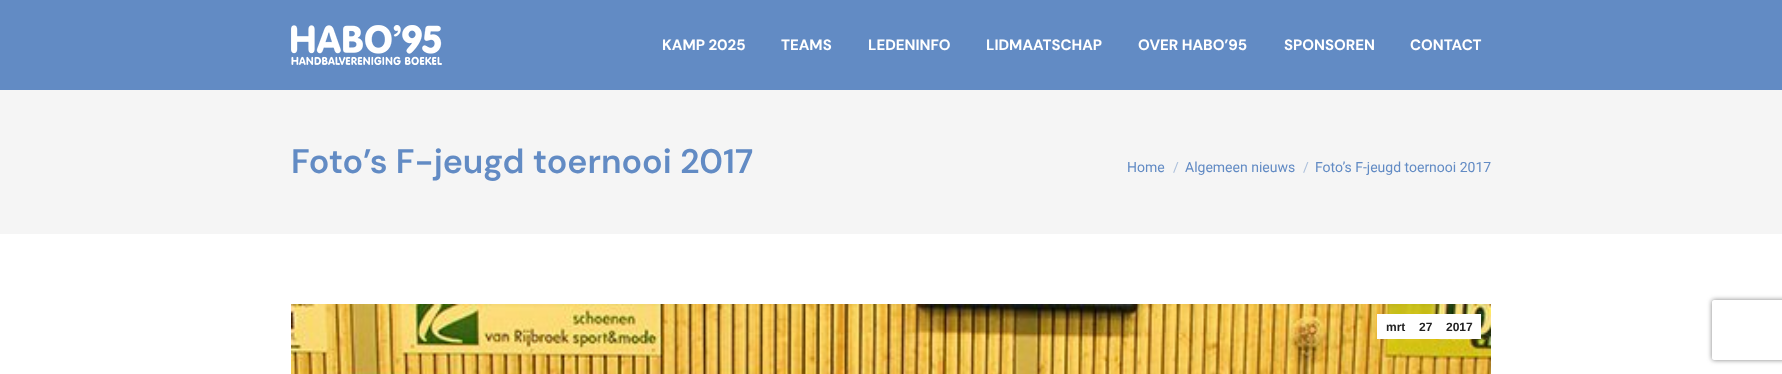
async function draw(canvas) {
  canvas.width = 1782
  canvas.height = 374
  const ctx = canvas.getContext('2d')
  ctx.miterLimit = 4
  ctx.fontKerning = 'normal'
  async function loadImage(src) {
    const img = new Image()
    img.src = src
    await img.decode()
    return img
  }

  ctx.fillStyle = '#fff'
  ctx.fillRect(0, 0, 1782, 374)
  ctx.fillStyle = '#628bc4'
  ctx.fillRect(0, 0, 1782, 90)
  ctx.drawImage(await loadImage('image0.png'), 291, 25, 151, 40)
  ctx.font = 'bold 15px DM Sans'
  ctx.fillStyle = '#fff'
  ctx.fillText('KAMP 2025', 662, 50)
  ctx.fillText('TEAMS', 781, 50)
  ctx.fillText('LEDENINFO', 868, 50)
  ctx.fillText('LIDMAATSCHAP', 986, 50)
  ctx.fillText('OVER HABO’95', 1138, 50)
  ctx.fillText('SPONSOREN', 1284, 50)
  ctx.fillText('CONTACT', 1410, 50)
  ctx.fillStyle = '#f5f5f5'
  ctx.fillRect(0, 90, 1782, 144)
  ctx.font = '600 34px DM Sans'
  ctx.fillStyle = '#628bc4'
  ctx.fillText('Foto’s F-jeugd toernooi 2017', 291, 173)
  ctx.font = '14px Roboto'
  ctx.fillText('Home', 1127, 172)
  ctx.fillStyle = '#acc0dc'
  ctx.fillText('/', 1173, 172)
  ctx.fillStyle = '#628bc4'
  ctx.fillText('Algemeen nieuws', 1185, 172)
  ctx.fillStyle = '#acc0dc'
  ctx.fillText('/', 1303, 172)
  ctx.fillStyle = '#628bc4'
  ctx.fillText('Foto’s F-jeugd toernooi 2017', 1315, 172)
  ctx.drawImage(await loadImage('image1.png'), 291, 304, 1200, 70)
  ctx.fillStyle = '#fff'
  ctx.fillRect(1377, 314, 104, 25)
  ctx.font = 'bold 12px Liberation Sans'
  ctx.fillStyle = '#222'
  ctx.fillText('mrt', 1386, 331)
  ctx.fillText('27', 1419, 331)
  ctx.fillText('2017', 1446, 331)
  ctx.save()
  ctx.beginPath()
  ctx.moveTo(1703, 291)
  ctx.lineTo(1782, 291)
  ctx.lineTo(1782, 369)
  ctx.lineTo(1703, 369)
  ctx.closePath()
  ctx.moveTo(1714, 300)
  ctx.lineTo(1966, 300)
  ctx.bezierCurveTo(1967, 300, 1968, 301, 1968, 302)
  ctx.lineTo(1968, 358)
  ctx.bezierCurveTo(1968, 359, 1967, 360, 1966, 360)
  ctx.lineTo(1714, 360)
  ctx.bezierCurveTo(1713, 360, 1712, 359, 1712, 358)
  ctx.lineTo(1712, 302)
  ctx.bezierCurveTo(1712, 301, 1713, 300, 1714, 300)
  ctx.closePath()
  ctx.clip('evenodd')
  ctx.fillStyle = '#808080'
  ctx.filter = 'blur(2.5px)'
  ctx.beginPath()
  ctx.roundRect(1712, 300, 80, 60, 2)
  ctx.fill()
  ctx.filter = 'none'
  ctx.restore()
}

draw(document.querySelector('canvas'))
